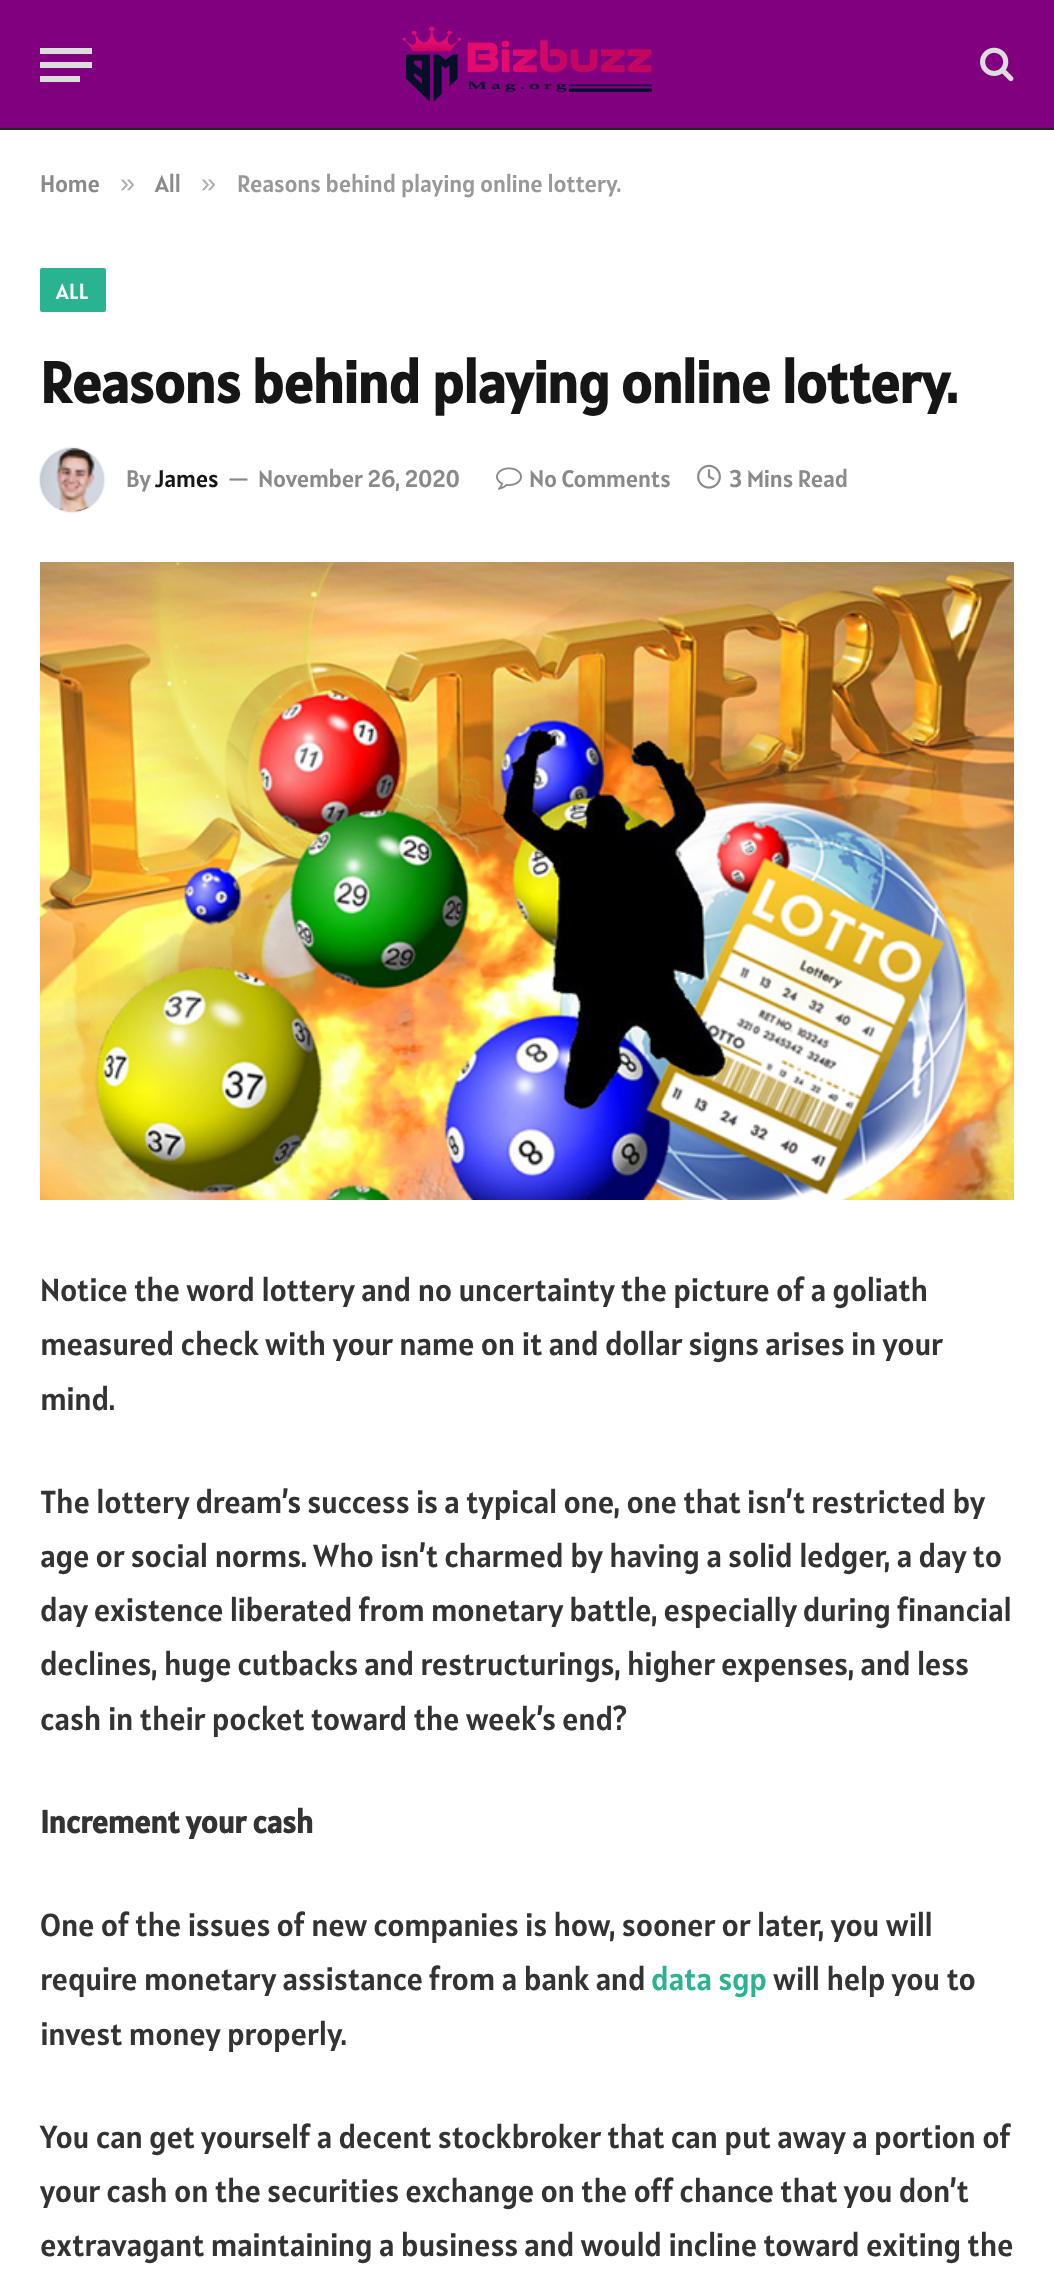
async function draw(canvas) {
  canvas.width = 1054
  canvas.height = 2287
  const ctx = canvas.getContext('2d')
  ctx.miterLimit = 4
  ctx.fontKerning = 'normal'
  async function loadImage(src) {
    const img = new Image()
    img.src = src
    await img.decode()
    return img
  }

  ctx.fillStyle = '#fff'
  ctx.fillRect(0, 0, 1054, 2287)
  ctx.fillStyle = '#800080'
  ctx.fillRect(0, 0, 1054, 128)
  ctx.fillStyle = '#222'
  ctx.fillRect(0, 128, 1054, 2)
  ctx.fillStyle = '#ddd'
  ctx.fillRect(40, 76, 40, 6)
  ctx.fillRect(40, 48, 52, 6)
  ctx.fillRect(40, 62, 52, 6)
  ctx.drawImage(await loadImage('image0.png'), 402, 26, 250, 76)
  ctx.drawImage(await loadImage('image1.png'), 980, 47, 34, 35)
  ctx.font = '24px Alatsi'
  ctx.fillStyle = '#8a8a8a'
  ctx.fillText('Home', 40, 192)
  ctx.font = '27px Liberation Sans'
  ctx.fillStyle = '#adadad'
  ctx.fillText('»', 120, 192)
  ctx.font = '24px Alatsi'
  ctx.fillStyle = '#8a8a8a'
  ctx.fillText('All', 155, 192)
  ctx.font = '27px Liberation Sans'
  ctx.fillStyle = '#adadad'
  ctx.fillText('»', 201, 192)
  ctx.font = '24px Alatsi'
  ctx.fillStyle = '#999'
  ctx.fillText('Reasons behind playing online lottery.', 237, 192)
  ctx.fillStyle = '#2ab391'
  ctx.beginPath()
  ctx.roundRect(40, 268, 66, 44, 2)
  ctx.fill()
  ctx.letterSpacing = '0.5px'
  ctx.font = '22px Alatsi'
  ctx.fillStyle = '#fff'
  ctx.fillText('ALL', 56, 299)
  ctx.letterSpacing = '-0.3px'
  ctx.font = 'bold 58px Alatsi'
  ctx.fillStyle = '#161616'
  ctx.fillText('Reasons behind playing online lottery.', 40, 403)
  ctx.fillStyle = '#00000033'
  ctx.filter = 'blur(1px)'
  ctx.beginPath()
  ctx.roundRect(40, 448, 64, 64, 32)
  ctx.fill()
  ctx.filter = 'none'
  ctx.drawImage(await loadImage('image2.png'), 40, 448, 64, 64)
  ctx.letterSpacing = '0px'
  ctx.font = '24px Alatsi'
  ctx.fillStyle = '#8a8a8a'
  ctx.fillText('By', 126, 487)
  ctx.fillStyle = '#161616'
  ctx.fillText('James', 155, 487)
  ctx.font = '22px Alatsi'
  ctx.fillStyle = '#8a8a8a'
  ctx.fillText('—', 228, 486)
  ctx.font = '24px Alatsi'
  ctx.fillText('November 26, 2020', 258, 487)
  ctx.drawImage(await loadImage('image3.png'), 496, 467, 26, 23)
  ctx.fillText('No Comments', 529, 487)
  ctx.drawImage(await loadImage('image4.png'), 697, 464, 24, 25)
  ctx.fillText('3 Mins Read', 729, 487)
  ctx.drawImage(await loadImage('image5.png'), 40, 562, 974, 638)
  ctx.font = '31.9px Alatsi'
  ctx.fillStyle = '#333'
  ctx.fillText('Notice the word lottery and no uncertainty the picture of a goliath', 40, 1301)
  ctx.fillText('measured check with your name on it and dollar signs arises in your', 40, 1355)
  ctx.fillText('mind.', 40, 1410)
  ctx.fillText('The lottery dream’s success is a typical one, one that isn’t restricted by', 40, 1513)
  ctx.fillText('age or social norms. Who isn’t charmed by having a solid ledger, a day to', 40, 1567)
  ctx.wordSpacing = '-0.25px'
  ctx.fillText('day existence liberated from monetary battle, especially during financial', 40, 1621)
  ctx.fillText('declines, huge cutbacks and restructurings, higher expenses, and less', 40, 1675)
  ctx.wordSpacing = '0px'
  ctx.fillText('cash in their pocket toward the week’s end?', 40, 1730)
  ctx.font = 'bold 31.9px Alatsi'
  ctx.fillText('Increment your cash', 40, 1833)
  ctx.font = '31.9px Alatsi'
  ctx.fillText('One of the issues of new companies is how, sooner or later, you will', 40, 1936)
  ctx.fillText('require monetary assistance from a bank and', 40, 1990)
  ctx.fillStyle = '#2ab391'
  ctx.fillText('data sgp', 651, 1990)
  ctx.fillStyle = '#333'
  ctx.fillText('will help you to', 773, 1990)
  ctx.fillText('invest money properly.', 40, 2045)
  ctx.fillText('You can get yourself a decent stockbroker that can put away a portion of', 40, 2148)
  ctx.fillText('your cash on the securities exchange on the off chance that you don’t', 40, 2202)
  ctx.wordSpacing = '-0.1px'
  ctx.fillText('extravagant maintaining a business and would incline toward exiting the', 40, 2256)
}

draw(document.querySelector('canvas'))
